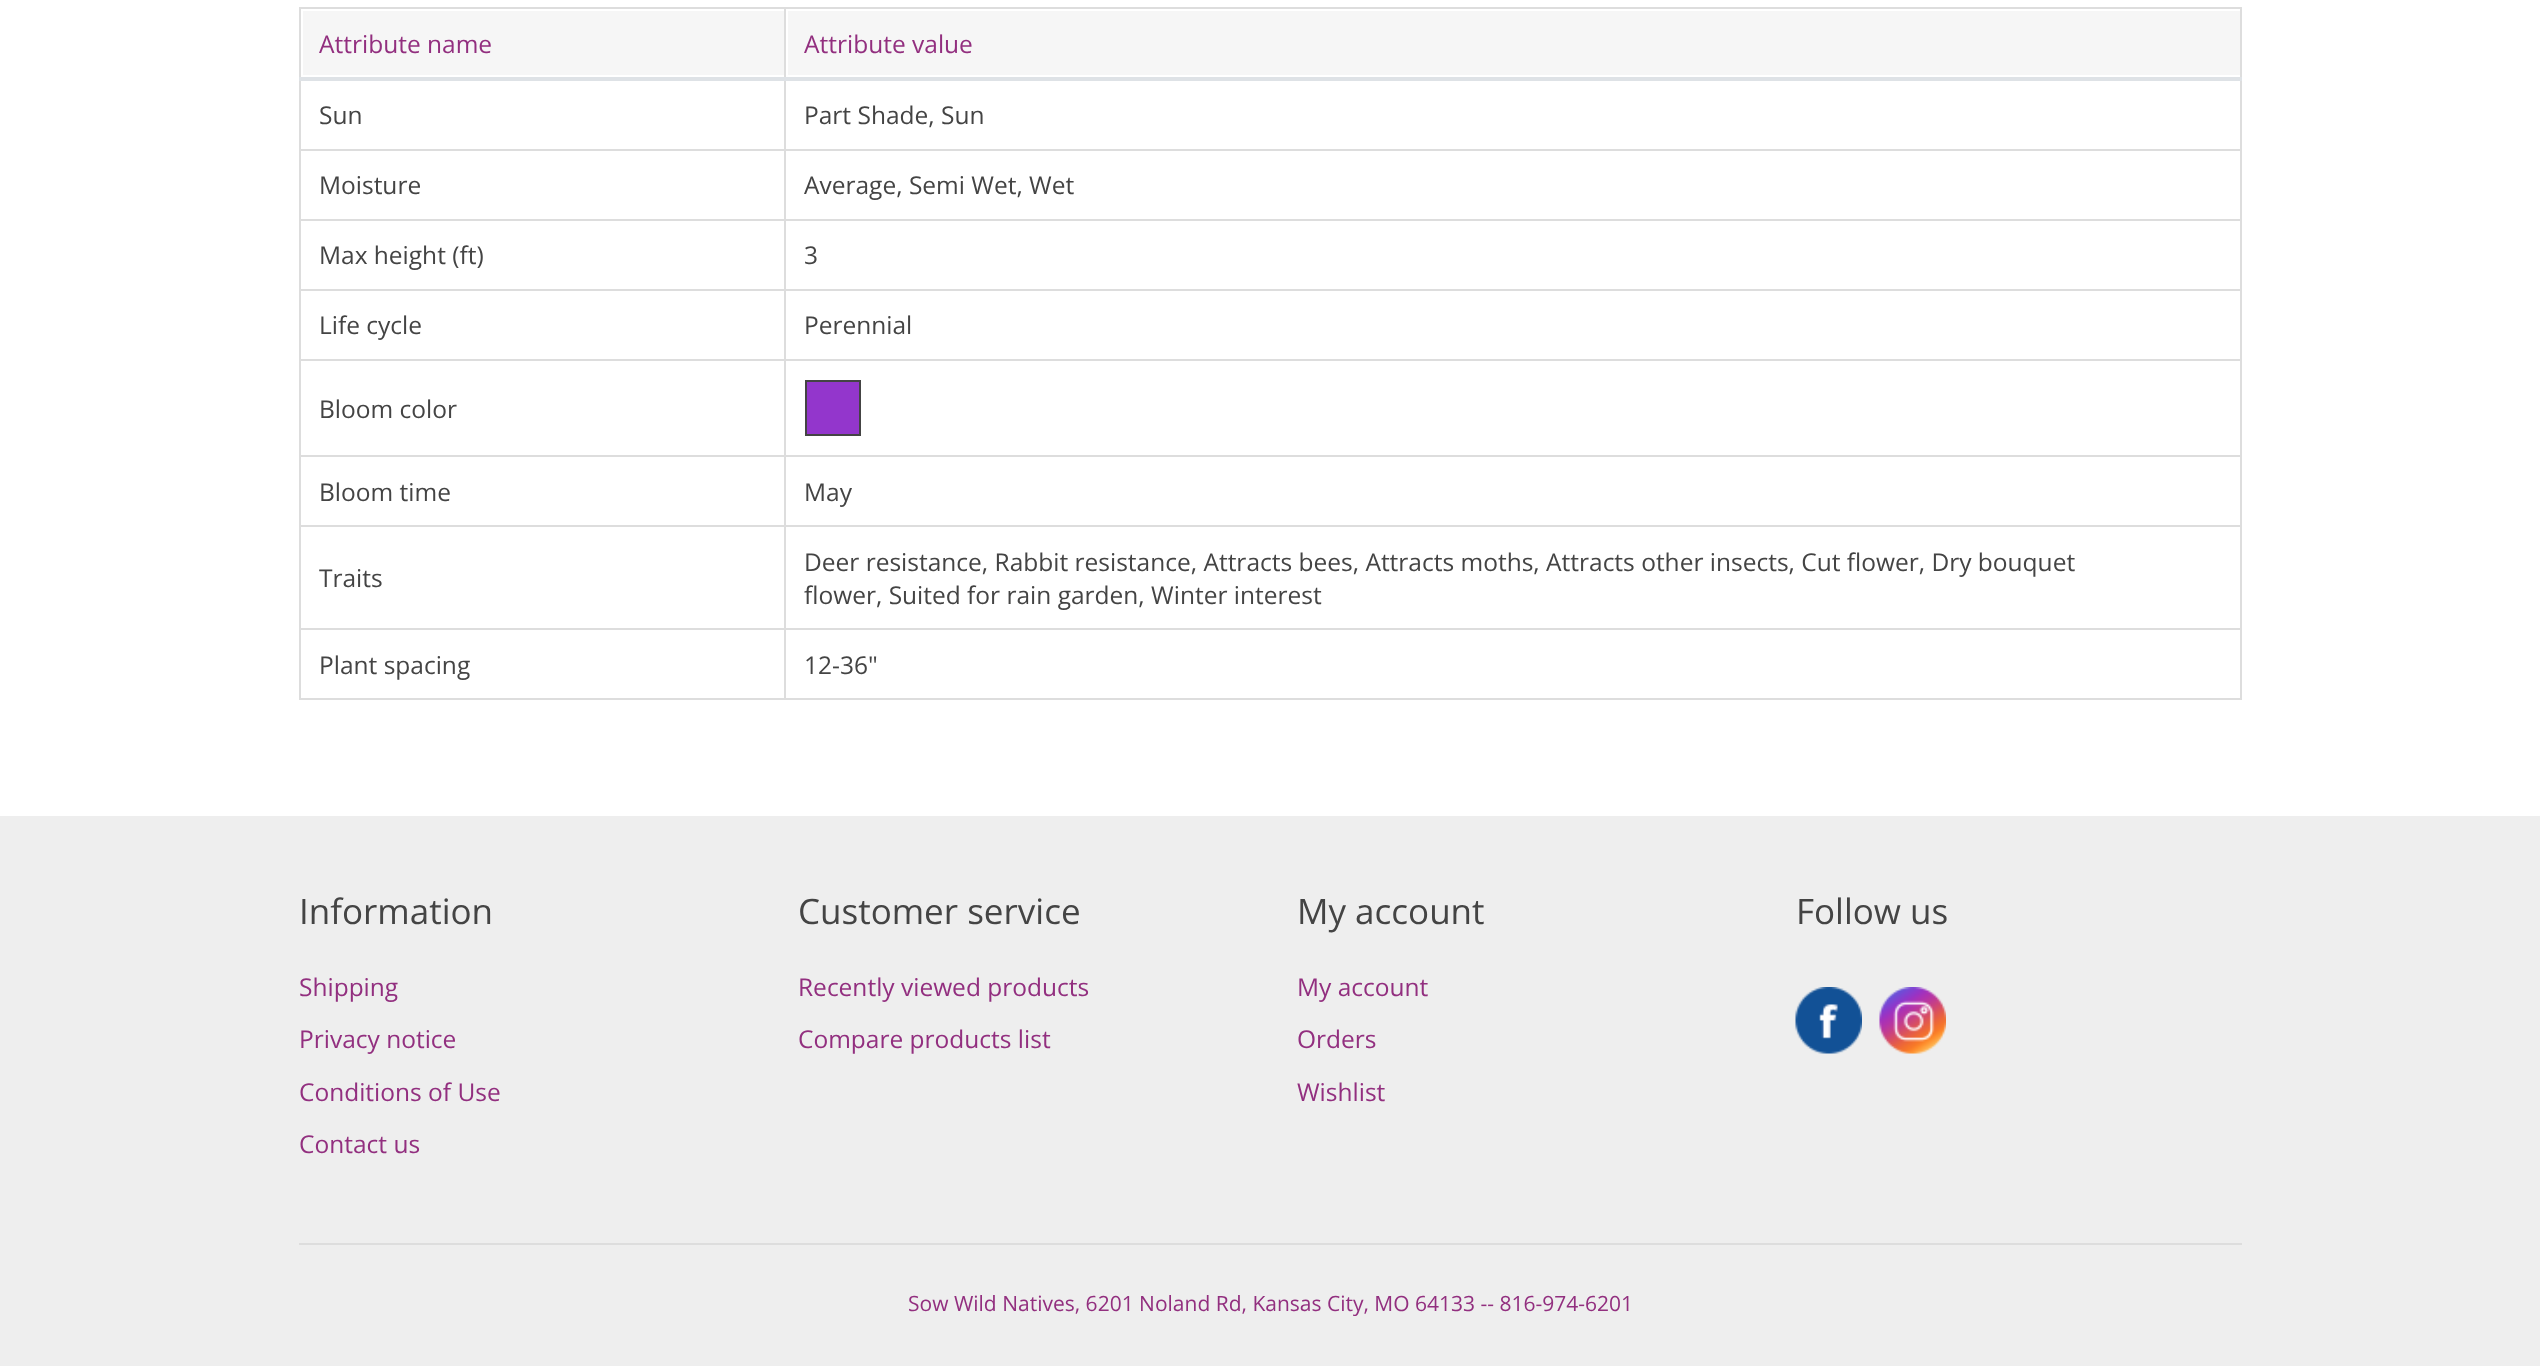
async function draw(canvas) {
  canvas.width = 2540
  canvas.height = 1366
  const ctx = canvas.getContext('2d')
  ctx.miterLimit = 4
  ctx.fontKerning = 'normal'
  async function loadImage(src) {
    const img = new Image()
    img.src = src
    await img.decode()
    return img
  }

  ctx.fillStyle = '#fff'
  ctx.fillRect(0, 0, 2540, 1366)
  ctx.fillStyle = '#f6f6f6'
  ctx.fillRect(303, 11, 481, 64)
  ctx.fillStyle = '#ddd'
  ctx.fillRect(784, 7, 1458, 2)
  ctx.fillRect(784, 149, 1458, 2)
  ctx.fillRect(784, 219, 1458, 2)
  ctx.fillRect(784, 289, 1458, 2)
  ctx.fillRect(784, 359, 1458, 2)
  ctx.fillRect(784, 455, 1458, 2)
  ctx.fillRect(784, 525, 1458, 2)
  ctx.fillRect(784, 628, 1458, 2)
  ctx.fillRect(2240, 628, 2, 72)
  ctx.fillRect(784, 698, 1458, 2)
  ctx.fillRect(784, 628, 2, 72)
  ctx.fillRect(299, 628, 487, 2)
  ctx.fillRect(784, 525, 2, 105)
  ctx.fillRect(299, 525, 487, 2)
  ctx.fillRect(784, 455, 2, 72)
  ctx.fillRect(299, 455, 487, 2)
  ctx.fillRect(784, 359, 2, 98)
  ctx.fillRect(299, 359, 487, 2)
  ctx.fillRect(784, 289, 2, 72)
  ctx.fillRect(299, 289, 487, 2)
  ctx.fillRect(784, 219, 2, 72)
  ctx.fillRect(299, 219, 487, 2)
  ctx.fillRect(784, 149, 2, 72)
  ctx.fillRect(299, 149, 487, 2)
  ctx.fillRect(784, 79, 2, 72)
  ctx.fillRect(784, 7, 2, 74)
  ctx.fillRect(299, 7, 487, 2)
  ctx.fillRect(299, 698, 487, 2)
  ctx.fillRect(299, 628, 2, 72)
  ctx.fillRect(299, 525, 2, 105)
  ctx.fillRect(299, 455, 2, 72)
  ctx.fillRect(299, 359, 2, 98)
  ctx.fillRect(299, 289, 2, 72)
  ctx.fillRect(299, 219, 2, 72)
  ctx.fillRect(299, 79, 2, 142)
  ctx.fillRect(299, 7, 2, 74)
  ctx.font = '24.5px Open Sans'
  ctx.fillStyle = '#922f7f'
  ctx.fillText('Attribute name', 319, 53)
  ctx.fillStyle = '#f6f6f6'
  ctx.fillRect(788, 11, 1452, 64)
  ctx.fillStyle = '#ddd'
  ctx.fillRect(2240, 525, 2, 105)
  ctx.fillRect(2240, 455, 2, 72)
  ctx.fillRect(2240, 359, 2, 98)
  ctx.fillRect(2240, 289, 2, 72)
  ctx.fillRect(2240, 219, 2, 72)
  ctx.fillRect(2240, 79, 2, 142)
  ctx.fillRect(2240, 7, 2, 74)
  ctx.fillStyle = '#dee2e6'
  ctx.fillRect(299, 77, 1943, 4)
  ctx.fillStyle = '#922f7f'
  ctx.fillText('Attribute value', 804, 53)
  ctx.fillStyle = '#444'
  ctx.fillText('Sun', 319, 124)
  ctx.fillText('Part Shade, Sun', 804, 124)
  ctx.fillText('Moisture', 319, 194)
  ctx.fillText('Average, Semi Wet, Wet', 804, 194)
  ctx.fillText('Max height (ft)', 319, 264)
  ctx.fillText('3', 804, 264)
  ctx.fillText('Life cycle', 319, 334)
  ctx.fillText('Perennial', 804, 334)
  ctx.fillText('Bloom color', 319, 418)
  ctx.fillStyle = '#9336cc'
  ctx.fillRect(807, 382, 52, 52)
  ctx.fillStyle = '#444'
  ctx.fillRect(805, 380, 56, 2)
  ctx.fillRect(859, 380, 2, 56)
  ctx.fillRect(805, 434, 56, 2)
  ctx.fillRect(805, 380, 2, 56)
  ctx.fillText('Bloom time', 319, 501)
  ctx.fillText('May', 804, 501)
  ctx.fillText('Traits', 319, 587)
  ctx.fillText('Deer resistance, Rabbit resistance, Attracts bees, Attracts moths, Attracts other insects, Cut flower, Dry bouquet', 804, 571)
  ctx.fillText('flower, Suited for rain garden, Winter interest', 804, 604)
  ctx.fillText('Plant spacing', 319, 674)
  ctx.fillText('12-36"', 804, 674)
  ctx.fillStyle = '#eee'
  ctx.fillRect(0, 816, 2540, 550)
  ctx.fillStyle = '#ddd'
  ctx.fillRect(299, 1243, 1943, 2)
  ctx.font = '35px Open Sans'
  ctx.fillStyle = '#444'
  ctx.fillText('Information', 299, 924)
  ctx.font = '24.5px Open Sans'
  ctx.fillStyle = '#922f7f'
  ctx.fillText('Shipping', 299, 996)
  ctx.fillText('Privacy notice', 299, 1048)
  ctx.fillText('Conditions of Use', 299, 1101)
  ctx.fillText('Contact us', 299, 1153)
  ctx.font = '35px Open Sans'
  ctx.fillStyle = '#444'
  ctx.fillText('Customer service', 798, 924)
  ctx.font = '24.5px Open Sans'
  ctx.fillStyle = '#922f7f'
  ctx.fillText('Recently viewed products', 798, 996)
  ctx.fillText('Compare products list', 798, 1048)
  ctx.font = '35px Open Sans'
  ctx.fillStyle = '#444'
  ctx.fillText('My account', 1297, 924)
  ctx.font = '24.5px Open Sans'
  ctx.fillStyle = '#922f7f'
  ctx.fillText('My account', 1297, 996)
  ctx.fillText('Orders', 1297, 1048)
  ctx.fillText('Wishlist', 1297, 1101)
  ctx.font = '35px Open Sans'
  ctx.fillStyle = '#444'
  ctx.fillText('Follow us', 1796, 924)
  ctx.drawImage(await loadImage('image0.png'), 1795, 987, 67, 67)
  ctx.drawImage(await loadImage('image1.png'), 1879, 987, 67, 67)
  ctx.font = '21px Open Sans'
  ctx.fillStyle = '#922f7f'
  ctx.fillText('Sow Wild Natives, 6201 Noland Rd, Kansas City, MO 64133 -- 816-974-6201', 908, 1311)
}

draw(document.querySelector('canvas'))
